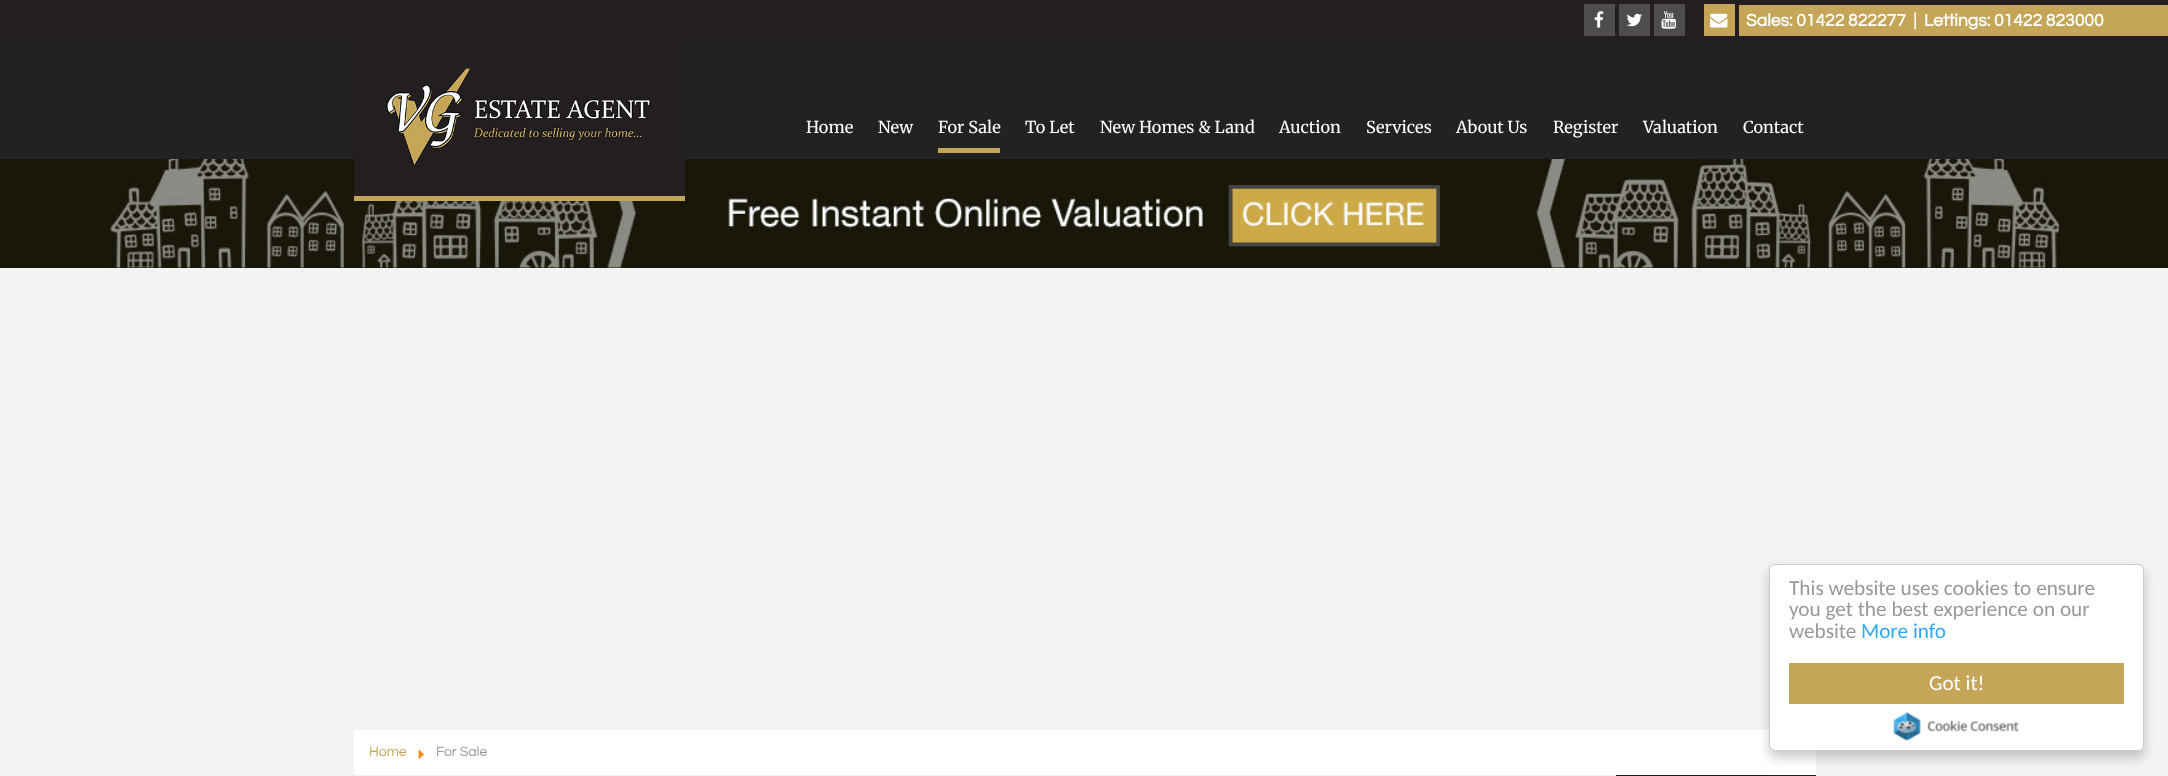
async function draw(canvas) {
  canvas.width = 2168
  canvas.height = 776
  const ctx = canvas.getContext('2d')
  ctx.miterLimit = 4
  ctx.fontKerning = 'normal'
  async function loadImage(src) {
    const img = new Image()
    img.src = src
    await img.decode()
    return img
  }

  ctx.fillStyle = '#19170a'
  ctx.fillRect(0, 0, 2168, 776)
  ctx.fillStyle = '#222'
  ctx.fillRect(0, 40, 2168, 119)
  ctx.fillStyle = '#231f20'
  ctx.fillRect(0, 0, 2168, 40)
  ctx.fillStyle = '#4f4c4d'
  ctx.fillRect(1584, 4, 31, 32)
  ctx.drawImage(await loadImage('image0.png'), 1594, 11, 10, 17)
  ctx.fillRect(1619, 4, 31, 32)
  ctx.drawImage(await loadImage('image1.png'), 1627, 13, 15, 14)
  ctx.fillRect(1654, 4, 31, 32)
  ctx.drawImage(await loadImage('image2.png'), 1661, 11, 15, 18)
  ctx.fillStyle = '#c5a659'
  ctx.fillRect(1704, 4, 31, 32)
  ctx.drawImage(await loadImage('image3.png'), 1710, 13, 18, 15)
  ctx.fillRect(1739, 5, 429, 31)
  ctx.font = 'bold 17.5px Questrial'
  ctx.fillStyle = '#fff'
  ctx.fillText('Sales: 01422 822277  |  Lettings: 01422 823000', 1746, 26)
  ctx.drawImage(await loadImage('image5.png'), 110, 159, 1949, 109)
  ctx.fillStyle = '#231f20'
  ctx.fillRect(354, 40, 331, 156)
  ctx.fillStyle = '#c5a659'
  ctx.fillRect(354, 196, 331, 5)
  ctx.drawImage(await loadImage('image4.png'), 386, 68, 265, 97)
  ctx.font = '16.4px Merriweather'
  ctx.fillStyle = '#fff'
  ctx.fillText('Home', 806, 133)
  ctx.fillText('New', 878, 133)
  ctx.fillText('For Sale', 938, 133)
  ctx.fillStyle = '#c5a659'
  ctx.fillRect(938, 148, 62, 5)
  ctx.fillStyle = '#fff'
  ctx.fillText('To Let', 1025, 133)
  ctx.fillText('New Homes & Land', 1100, 133)
  ctx.fillText('Auction', 1279, 133)
  ctx.fillText('Services', 1366, 133)
  ctx.fillText('About Us', 1456, 133)
  ctx.fillText('Register', 1553, 133)
  ctx.fillText('Valuation', 1643, 133)
  ctx.fillText('Contact', 1743, 133)
  ctx.fillStyle = '#f3f3f3'
  ctx.fillRect(0, 268, 2168, 508)
  ctx.fillStyle = '#fff'
  ctx.fillRect(354, 730, 1462, 45)
  ctx.font = '14px Questrial'
  ctx.fillStyle = '#c5a659'
  ctx.fillText('Home', 369, 756)
  ctx.drawImage(await loadImage('image6.png'), 418, 749, 6, 10)
  ctx.fillStyle = '#999'
  ctx.fillText('For Sale', 436, 756)
  ctx.fillStyle = '#231f20'
  ctx.fillRect(1616, 775, 200, 1)
  ctx.fillStyle = '#00000033'
  ctx.filter = 'blur(6px)'
  ctx.beginPath()
  ctx.roundRect(1769, 570, 375, 188, 6)
  ctx.fill()
  ctx.filter = 'none'
  ctx.fillStyle = '#fff'
  ctx.beginPath()
  ctx.roundRect(1769.5, 564.5, 374, 186, 5.5)
  ctx.fill()
  ctx.strokeStyle = '#ccc'
  ctx.stroke()
  ctx.font = '21.25px Carlito'
  ctx.fillStyle = '#999'
  ctx.fillText('This website uses cookies to ensure', 1789, 595)
  ctx.fillText('you get the best experience on our', 1789, 616)
  ctx.fillText('website', 1789, 638)
  ctx.fillStyle = '#31a8f0'
  ctx.fillText('More info', 1861, 638)
  ctx.fillStyle = '#c5a659'
  ctx.fillRect(1789, 663, 335, 41)
  ctx.fillStyle = '#fff'
  ctx.fillText('Got it!', 1929, 690)
  ctx.drawImage(await loadImage('image7.png'), 1893, 712, 126, 29)
}

draw(document.querySelector('canvas'))
